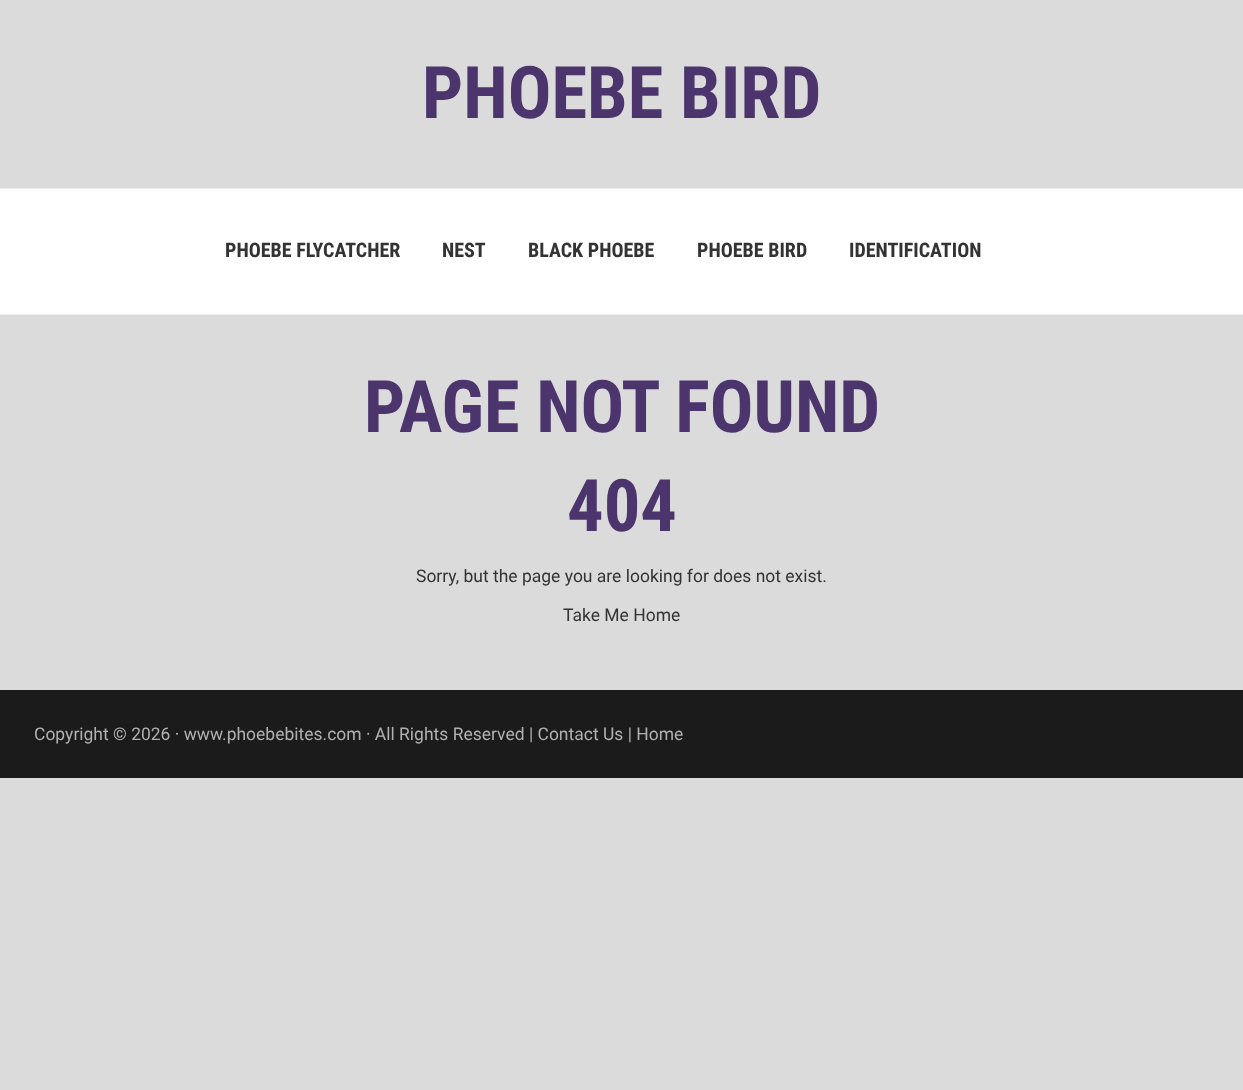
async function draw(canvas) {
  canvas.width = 1243
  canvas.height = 1090
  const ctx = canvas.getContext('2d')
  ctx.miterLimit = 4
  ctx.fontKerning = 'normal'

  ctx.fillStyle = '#dbdbdb'
  ctx.fillRect(0, 0, 1243, 1090)
  ctx.font = 'bold 72.5px Roboto Condensed'
  ctx.fillStyle = '#4c356d'
  ctx.fillText('PHOEBE BIRD', 422, 118)
  ctx.fillStyle = '#fff'
  ctx.fillRect(0, 189, 1243, 125)
  ctx.fillStyle = '#f0f0f0'
  ctx.fillRect(0, 188, 1243, 1)
  ctx.fillRect(0, 314, 1243, 1)
  ctx.font = 'bold 20px Roboto Condensed'
  ctx.fillStyle = '#333'
  ctx.fillText('PHOEBE FLYCATCHER', 225, 257)
  ctx.fillText('NEST', 442, 257)
  ctx.fillText('BLACK PHOEBE', 528, 257)
  ctx.fillText('PHOEBE BIRD', 697, 257)
  ctx.fillText('IDENTIFICATION', 849, 257)
  ctx.font = 'bold 72.5px Roboto Condensed'
  ctx.fillStyle = '#4c356d'
  ctx.fillText('PAGE NOT FOUND', 364, 432)
  ctx.fillText('404', 567, 531)
  ctx.font = '17.5px Roboto'
  ctx.fillStyle = '#333'
  ctx.fillText('Sorry, but the page you are looking for does not exist.', 416, 582)
  ctx.fillText('Take Me Home', 563, 621)
  ctx.fillStyle = '#1b1b1b'
  ctx.fillRect(0, 690, 1243, 88)
  ctx.fillStyle = '#afb1b2'
  ctx.fillText('Copyright © 2026 · www.phoebebites.com · All Rights Reserved | Contact Us | Home', 34, 740)
}

draw(document.querySelector('canvas'))
